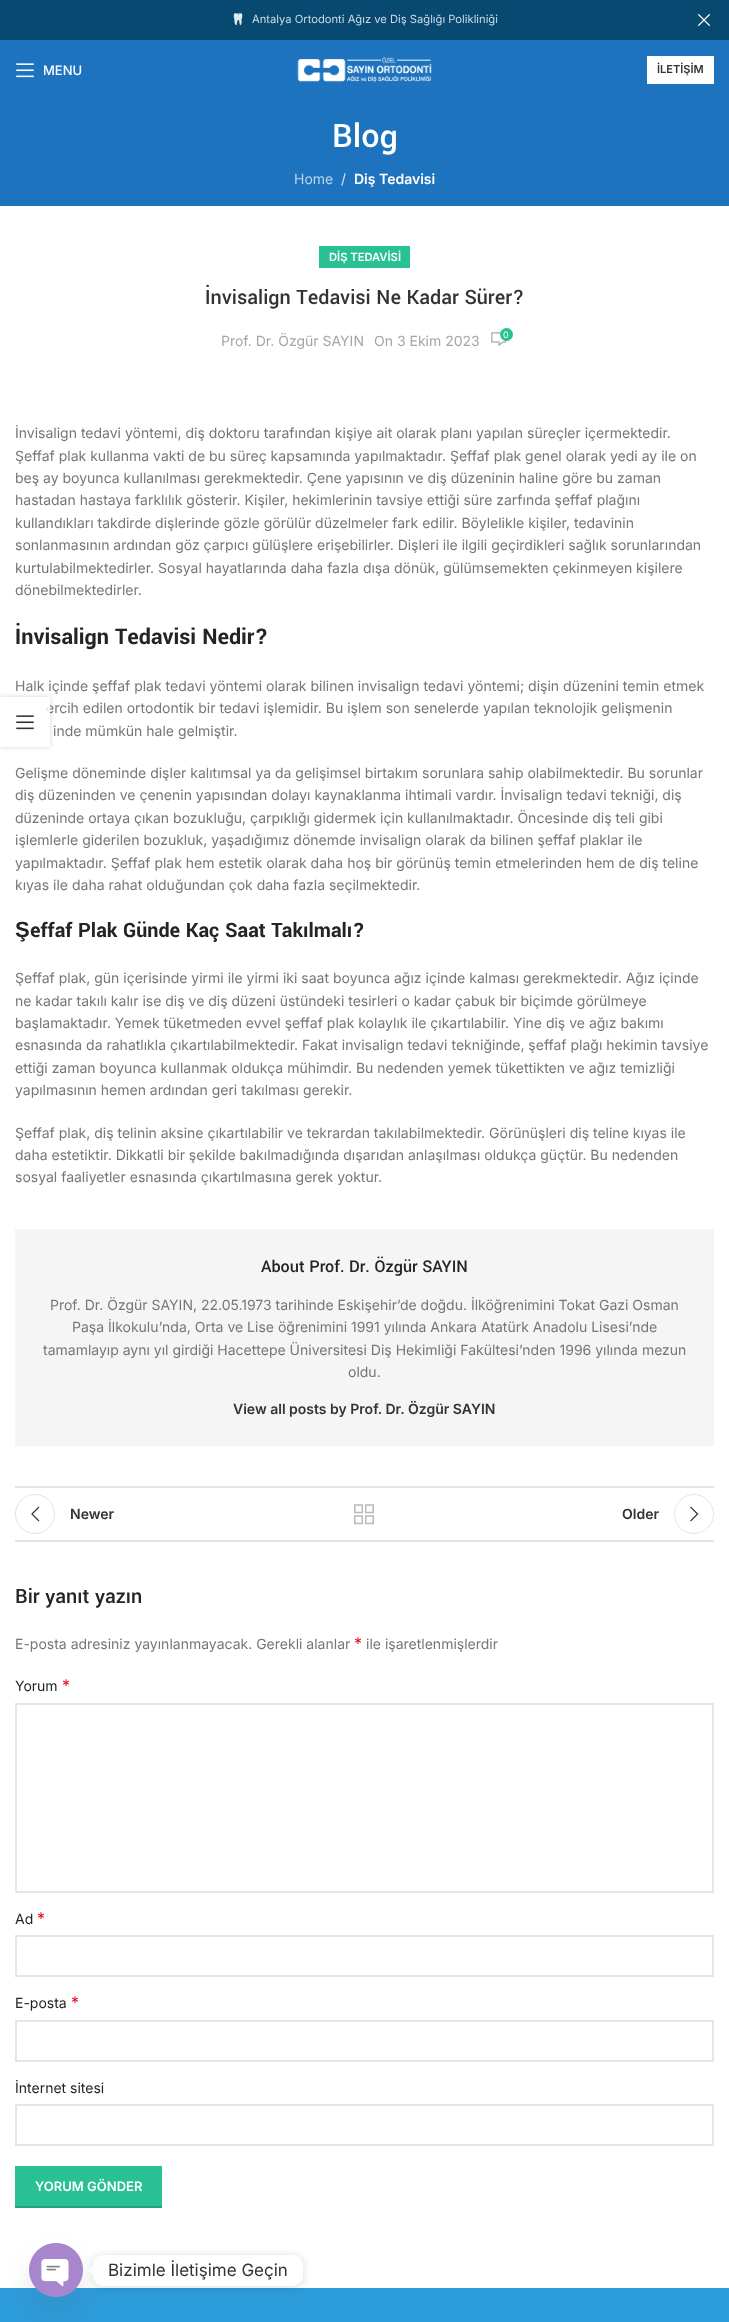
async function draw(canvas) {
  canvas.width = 729
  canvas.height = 2322
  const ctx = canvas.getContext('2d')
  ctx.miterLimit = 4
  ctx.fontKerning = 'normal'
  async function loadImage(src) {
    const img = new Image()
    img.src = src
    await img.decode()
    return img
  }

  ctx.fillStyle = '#fff'
  ctx.fillRect(0, 0, 729, 2322)
  ctx.fillStyle = '#074970'
  ctx.fillRect(0, 0, 729, 40)
  ctx.font = '11.2px Noto Color Emoji'
  ctx.fillStyle = '#cddbe2'
  ctx.fillText('🦷', 231, 23)
  ctx.font = '11.2px Inter'
  ctx.fillText('Antalya Ortodonti Ağız ve Diş Sağlığı Polikliniği', 252, 23)
  ctx.drawImage(await loadImage('image0.png'), 697, 13, 14, 14)
  ctx.save()
  ctx.beginPath()
  ctx.moveTo(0, 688)
  ctx.lineTo(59, 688)
  ctx.lineTo(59, 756)
  ctx.lineTo(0, 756)
  ctx.closePath()
  ctx.moveTo(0, 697)
  ctx.lineTo(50, 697)
  ctx.lineTo(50, 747)
  ctx.lineTo(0, 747)
  ctx.closePath()
  ctx.clip('evenodd')
  ctx.fillStyle = '#0000002b'
  ctx.filter = 'blur(2.5px)'
  ctx.beginPath()
  ctx.rect(0, 697, 50, 50)
  ctx.fill()
  ctx.filter = 'none'
  ctx.restore()
  ctx.font = '14px Inter'
  ctx.fillStyle = '#767676'
  ctx.fillText('ercih edilen ortodontik bir tedavi işlemidir. Bu işlem son senelerde yapılan teknolojik gelişmenin', 46, 713)
  ctx.fillStyle = '#ffffffe6'
  ctx.fillRect(47, 705, 3, 9)
  ctx.drawImage(await loadImage('image1.png'), 16, 715, 18, 15)
  ctx.fillStyle = '#1e73be'
  ctx.fillRect(0, 40, 729, 166)
  ctx.drawImage(await loadImage('image2.png'), 16, 63, 18, 15)
  ctx.font = '500 13px Inter'
  ctx.fillStyle = '#fff'
  ctx.fillText('MENU', 43, 75)
  ctx.drawImage(await loadImage('image3.png'), 297, 56, 135, 27)
  ctx.fillRect(647, 56, 67, 28)
  ctx.font = '600 11px Inter'
  ctx.fillStyle = '#333'
  ctx.fillText('İLETİŞİM', 657, 73)
  ctx.font = '500 36px Yantramanav'
  ctx.fillStyle = '#fff'
  ctx.fillText('Blog', 332, 147)
  ctx.font = '14px Inter'
  ctx.fillStyle = '#bcd5ec'
  ctx.fillText('Home', 294, 184)
  ctx.fillStyle = '#d2e3f2'
  ctx.fillText('/', 341, 184)
  ctx.font = '600 14px Inter'
  ctx.fillStyle = '#fff'
  ctx.fillText('Diş Tedavisi', 354, 184)
  ctx.fillStyle = '#29c093'
  ctx.fillRect(319, 246, 91, 22)
  ctx.font = '600 11.2px Inter'
  ctx.fillStyle = '#fff'
  ctx.fillText('DİŞ TEDAVİSİ', 329, 261)
  ctx.font = '500 22px Yantramanav'
  ctx.fillStyle = '#333'
  ctx.fillText('İnvisalign Tedavisi Ne Kadar Sürer?', 205, 304)
  ctx.font = '14px Inter'
  ctx.fillStyle = '#a5a5a5'
  ctx.fillText('Prof. Dr. Özgür SAYIN', 221, 346)
  ctx.fillText('On 3 Ekim 2023', 374, 346)
  ctx.drawImage(await loadImage('image4.png'), 491, 332, 16, 14)
  ctx.fillStyle = '#29c093'
  ctx.beginPath()
  ctx.arc(506.5, 334.5, 6.5, 0, 2 * Math.PI)
  ctx.fill()
  ctx.font = '9px Inter'
  ctx.fillStyle = '#fff'
  ctx.fillText('0', 503, 338)
  ctx.font = '14px Inter'
  ctx.fillStyle = '#767676'
  ctx.fillText('İnvisalign tedavi yöntemi, diş doktoru tarafından kişiye ait olarak planı yapılan süreçler içermektedir.', 15, 438)
  ctx.fillText('Şeffaf plak kullanma vakti de bu süreç kapsamında yapılmaktadır. Şeffaf plak genel olarak yedi ay ile on', 15, 461)
  ctx.fillText('beş ay boyunca kullanılması gerekmektedir. Çene yapısının ve diş düzeninin haline göre bu zaman', 15, 483)
  ctx.fillText('hastadan hastaya farklılık gösterir. Kişiler, hekimlerinin tavsiye ettiği süre zarfında şeffaf plağını', 15, 505)
  ctx.fillText('kullandıkları takdirde dişlerinde gözle görülür düzelmeler fark edilir. Böylelikle kişiler, tedavinin', 15, 528)
  ctx.fillText('sonlanmasının ardından göz çarpıcı gülüşlere erişebilirler. Dişleri ile ilgili geçirdikleri sağlık sorunlarından', 15, 550)
  ctx.fillText('kurtulabilmektedirler. Sosyal hayatlarında daha fazla dışa dönük, gülümsemekten çekinmeyen kişilere', 15, 573)
  ctx.fillText('dönebilmektedirler.', 15, 595)
  ctx.font = 'bold 24px Yantramanav'
  ctx.fillStyle = '#242424'
  ctx.fillText('İnvisalign Tedavisi Nedir?', 15, 644)
  ctx.font = '14px Inter'
  ctx.fillStyle = '#767676'
  ctx.fillText('Halk içinde şeffaf plak tedavi yöntemi olarak bilinen invisalign tedavi yöntemi; dişin düzenini temin etmek', 15, 691)
  ctx.fillText('inde mümkün hale gelmiştir.', 53, 736)
  ctx.fillText('Gelişme döneminde dişler kalıtımsal ya da gelişimsel birtakım sorunlara sahip olabilmektedir. Bu sorunlar', 15, 778)
  ctx.fillText('diş düzeninden ve çenenin yapısından dolayı kaynaklanma ihtimali vardır. İnvisalign tedavi tekniği, diş', 15, 800)
  ctx.fillText('düzeninde ortaya çıkan bozukluğu, çarpıklığı gidermek için kullanılmaktadır. Öncesinde diş teli gibi', 15, 823)
  ctx.fillText('işlemlerle giderilen bozukluk, yaşadığımız dönemde invisalign olarak da bilinen şeffaf plaklar ile', 15, 845)
  ctx.fillText('yapılmaktadır. Şeffaf plak hem estetik olarak daha hoş bir görünüş temin etmelerinden hem de diş teline', 15, 868)
  ctx.fillText('kıyas ile daha rahat olduğundan çok daha fazla seçilmektedir.', 15, 890)
  ctx.font = 'bold 22px Liberation Sans'
  ctx.fillStyle = '#242424'
  ctx.fillText('Ş', 15, 937)
  ctx.font = 'bold 22px Yantramanav'
  ctx.fillText('effaf Plak Günde Kaç Saat Takılmalı?', 30, 937)
  ctx.font = '14px Inter'
  ctx.fillStyle = '#767676'
  ctx.fillText('Şeffaf plak, gün içerisinde yirmi ile yirmi iki saat boyunca ağız içinde kalması gerekmektedir. Ağız içinde', 15, 983)
  ctx.fillText('ne kadar takılı kalır ise diş ve diş düzeni üstündeki tesirleri o kadar çabuk bir biçimde görülmeye', 15, 1006)
  ctx.fillText('başlamaktadır. Yemek tüketmeden evvel şeffaf plak kolaylık ile çıkartılabilir. Yine diş ve ağız bakımı', 15, 1028)
  ctx.fillText('esnasında da rahatlıkla çıkartılabilmektedir. Fakat invisalign tedavi tekniğinde, şeffaf plağı hekimin tavsiye', 15, 1050)
  ctx.fillText('ettiği zaman boyunca kullanmak oldukça mühimdir. Bu nedenden yemek tükettikten ve ağız temizliği', 15, 1073)
  ctx.fillText('yapılmasının hemen ardından geri takılması gerekir.', 15, 1095)
  ctx.fillText('Şeffaf plak, diş telinin aksine çıkartılabilir ve tekrardan takılabilmektedir. Görünüşleri diş teline kıyas ile', 15, 1138)
  ctx.fillText('daha estetiktir. Dikkatli bir şekilde bakılmadığında dışarıdan anlaşılması oldukça güçtür. Bu nedenden', 15, 1160)
  ctx.fillText('sosyal faaliyetler esnasında çıkartılmasına gerek yoktur.', 15, 1182)
  ctx.fillStyle = '#f5f5f5'
  ctx.fillRect(15, 1229, 699, 217)
  ctx.font = '500 18px Yantramanav'
  ctx.fillStyle = '#242424'
  ctx.fillText('About Prof. Dr. Özgür SAYIN', 261, 1272)
  ctx.font = '14px Inter'
  ctx.fillStyle = '#767676'
  ctx.fillText('Prof. Dr. Özgür SAYIN, 22.05.1973 tarihinde Eskişehir’de doğdu. İlköğrenimini Tokat Gazi Osman', 50, 1310)
  ctx.fillText('Paşa İlkokulu’nda, Orta ve Lise öğrenimini 1991 yılında Ankara Atatürk Anadolu Lisesi’nde', 72, 1332)
  ctx.fillText('tamamlayıp aynı yıl girdiği Hacettepe Üniversitesi Diş Hekimliği Fakültesi’nden 1996 yılında mezun', 43, 1355)
  ctx.fillText('oldu.', 348, 1377)
  ctx.font = '600 14px Inter'
  ctx.fillStyle = '#333'
  ctx.fillText('View all posts by Prof. Dr. Özgür SAYIN', 233, 1414)
  ctx.fillStyle = '#e4e4e4'
  ctx.fillRect(15, 1486, 699, 2)
  ctx.fillRect(15, 1540, 699, 2)
  ctx.beginPath()
  ctx.arc(35, 1514, 19.5, 0, 2 * Math.PI)
  ctx.strokeStyle = '#e4e4e4'
  ctx.stroke()
  ctx.drawImage(await loadImage('image5.png'), 31, 1506, 9, 16)
  ctx.fillStyle = '#333'
  ctx.fillText('Newer', 70, 1519)
  ctx.drawImage(await loadImage('image6.png'), 354, 1504, 20, 21)
  ctx.fillText('Older', 622, 1519)
  ctx.beginPath()
  ctx.arc(694, 1514, 19.5, 0, 2 * Math.PI)
  ctx.stroke()
  ctx.drawImage(await loadImage('image7.png'), 690, 1506, 9, 16)
  ctx.font = '500 22px Yantramanav'
  ctx.fillStyle = '#242424'
  ctx.fillText('Bir yanıt yazın', 15, 1603)
  ctx.font = '14px Inter'
  ctx.fillStyle = '#767676'
  ctx.fillText('E-posta adresiniz yayınlanmayacak. Gerekli alanlar', 15, 1649)
  ctx.font = '16px Inter'
  ctx.fillStyle = '#e01020'
  ctx.fillText('*', 354, 1649)
  ctx.font = '14px Inter'
  ctx.fillStyle = '#767676'
  ctx.fillText('ile işaretlenmişlerdir', 366, 1649)
  ctx.fillStyle = '#242424'
  ctx.fillText('Yorum', 15, 1691)
  ctx.font = '16px Inter'
  ctx.fillStyle = '#e01020'
  ctx.fillText('*', 62, 1691)
  ctx.strokeStyle = '#e6e6e6'
  ctx.lineWidth = 2
  ctx.strokeRect(16, 1704, 697, 188)
  ctx.font = '14px Inter'
  ctx.fillStyle = '#242424'
  ctx.fillText('Ad', 15, 1924)
  ctx.font = '16px Inter'
  ctx.fillStyle = '#e01020'
  ctx.fillText('*', 37, 1924)
  ctx.strokeRect(16, 1936, 697, 40)
  ctx.font = '14px Inter'
  ctx.fillStyle = '#242424'
  ctx.fillText('E-posta', 15, 2008)
  ctx.font = '16px Inter'
  ctx.fillStyle = '#e01020'
  ctx.fillText('*', 71, 2008)
  ctx.strokeRect(16, 2021, 697, 40)
  ctx.font = '14px Inter'
  ctx.fillStyle = '#242424'
  ctx.fillText('İnternet sitesi', 15, 2093)
  ctx.strokeRect(16, 2105, 697, 40)
  ctx.fillStyle = '#29c093'
  ctx.fillRect(15, 2166, 147, 40)
  ctx.fillStyle = '#23a37d'
  ctx.fillRect(15, 2206, 147, 2)
  ctx.font = '600 13px Inter'
  ctx.fillStyle = '#fff'
  ctx.fillText('YORUM GÖNDER', 35, 2191)
  ctx.fillStyle = '#2d9cda'
  ctx.fillRect(0, 2288, 729, 34)
  ctx.fillStyle = '#00000026'
  ctx.filter = 'blur(4px)'
  ctx.beginPath()
  ctx.roundRect(93, 2256, 210, 31, 10)
  ctx.fill()
  ctx.filter = 'none'
  ctx.fillStyle = '#fff'
  ctx.beginPath()
  ctx.roundRect(93, 2255, 210, 31, 10)
  ctx.fill()
  ctx.beginPath()
  ctx.moveTo(93, 2265.5)
  ctx.lineTo(93, 2275.5)
  ctx.lineTo(88, 2270.5)
  ctx.closePath()
  ctx.fill()
  ctx.fillStyle = '#49687e29'
  ctx.filter = 'blur(12px)'
  ctx.beginPath()
  ctx.roundRect(29, 2259, 54, 54, 27)
  ctx.fill()
  ctx.filter = 'none'
  ctx.drawImage(await loadImage('image8.png'), 29, 2243, 54, 54)
  ctx.font = '17px Inter'
  ctx.fillStyle = '#333'
  ctx.fillText('Bizimle İletişime Geçin', 108, 2276)
}

draw(document.querySelector('canvas'))
